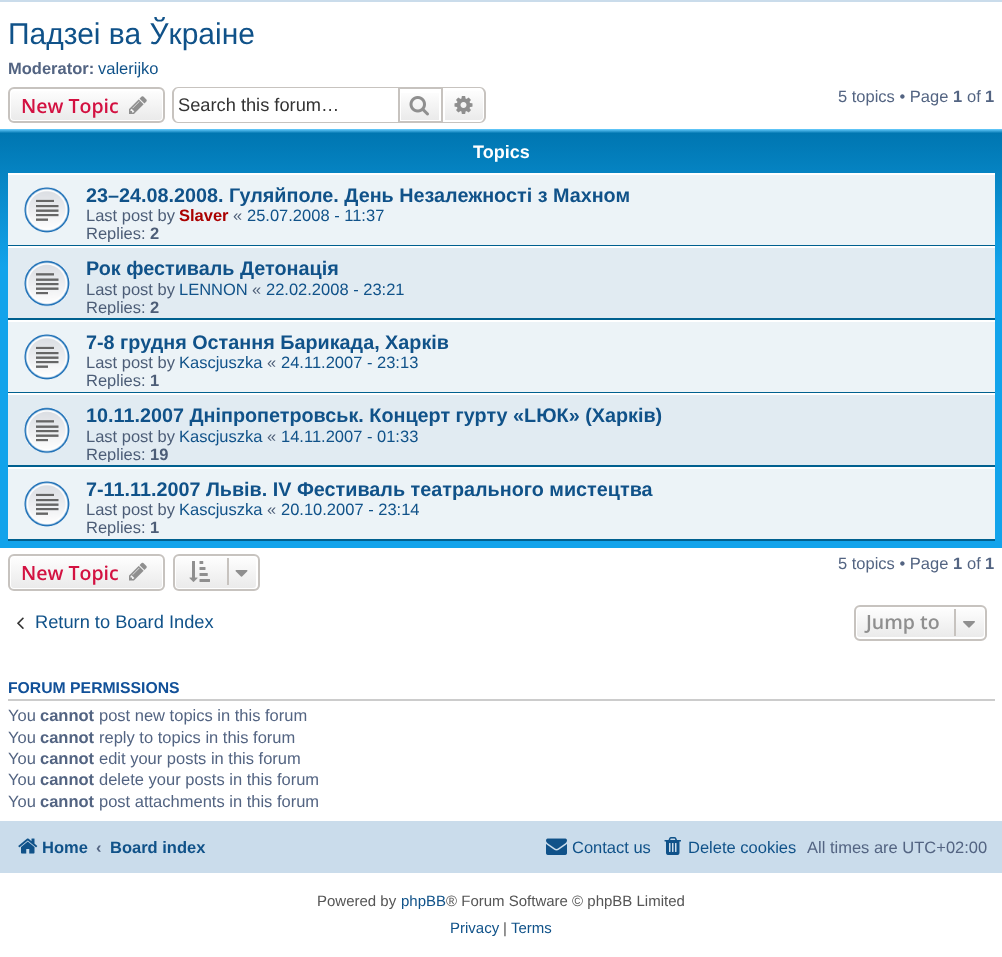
async function draw(canvas) {
  canvas.width = 1002
  canvas.height = 957
  const ctx = canvas.getContext('2d')
  ctx.miterLimit = 4
  ctx.fontKerning = 'normal'
  async function loadImage(src) {
    const img = new Image()
    img.src = src
    await img.decode()
    return img
  }
  let gradient

  ctx.fillStyle = '#fff'
  ctx.fillRect(0, 0, 1002, 957)
  ctx.fillStyle = '#cadceb'
  ctx.fillRect(0, 0, 1002, 2)
  ctx.font = '30px Liberation Sans'
  ctx.fillStyle = '#105289'
  ctx.fillText('Падзеі ва Ўкраіне', 8, 44)
  ctx.font = 'bold 16.5px Liberation Sans'
  ctx.fillStyle = '#536482'
  ctx.fillText('Moderator:', 8, 74)
  ctx.font = '16.5px Liberation Sans'
  ctx.fillStyle = '#105289'
  ctx.fillText('valerijko', 98, 74)
  ctx.save()
  ctx.beginPath()
  ctx.roundRect(8, 87, 157, 36, 6)
  ctx.clip()
  gradient = ctx.createLinearGradient(86, 88, 86, 122)
  gradient.addColorStop(0, '#fff')
  gradient.addColorStop(1, '#e9e9e9')
  ctx.fillStyle = gradient
  ctx.fillRect(8, 89, 157, 33)
  ctx.restore()
  ctx.beginPath()
  ctx.roundRect(10, 90, 153, 31, 4)
  ctx.strokeStyle = '#fff'
  ctx.lineWidth = 2
  ctx.stroke()
  ctx.beginPath()
  ctx.roundRect(9, 88, 155, 34, 5)
  ctx.strokeStyle = '#c7c3bf'
  ctx.stroke()
  ctx.font = '600 19.5px Open Sans'
  ctx.fillStyle = '#d31141'
  ctx.fillText('New Topic', 21, 113)
  ctx.drawImage(await loadImage('image0.png'), 129, 96, 18, 18)
  ctx.fillStyle = '#c7c3bf'
  ctx.beginPath()
  ctx.moveTo(178, 87)
  ctx.lineTo(398, 87)
  ctx.lineTo(398, 123)
  ctx.lineTo(178, 123)
  ctx.bezierCurveTo(175, 123, 172, 120, 172, 117)
  ctx.lineTo(172, 93)
  ctx.bezierCurveTo(172, 90, 175, 87, 178, 87)
  ctx.closePath()
  ctx.moveTo(178, 88)
  ctx.lineTo(398, 88)
  ctx.lineTo(398, 122)
  ctx.lineTo(178, 122)
  ctx.bezierCurveTo(176, 122, 174, 119, 174, 117)
  ctx.lineTo(174, 93)
  ctx.bezierCurveTo(174, 91, 176, 88, 178, 88)
  ctx.closePath()
  ctx.fill('evenodd')
  ctx.font = '18.25px Liberation Sans'
  ctx.fillStyle = '#333'
  ctx.fillText('Search this forum…', 178, 111)
  gradient = ctx.createLinearGradient(420, 89, 420, 122)
  gradient.addColorStop(0, '#fff')
  gradient.addColorStop(1, '#e9e9e9')
  ctx.fillStyle = gradient
  ctx.fillRect(401, 93, 38, 27)
  ctx.strokeRect(399, 88, 43, 34)
  ctx.drawImage(await loadImage('image1.png'), 409, 96, 20, 20)
  gradient = ctx.createLinearGradient(464, 89, 464, 122)
  gradient.addColorStop(0, '#fff')
  gradient.addColorStop(1, '#e9e9e9')
  ctx.fillStyle = gradient
  ctx.beginPath()
  ctx.roundRect(444, 90, 40, 31, [0, 4, 4, 0])
  ctx.fill()
  ctx.strokeStyle = '#fff'
  ctx.stroke()
  ctx.fillStyle = '#c7c3bf'
  ctx.beginPath()
  ctx.moveTo(442, 87)
  ctx.lineTo(480, 87)
  ctx.bezierCurveTo(483, 87, 486, 90, 486, 93)
  ctx.lineTo(486, 117)
  ctx.bezierCurveTo(486, 120, 483, 123, 480, 123)
  ctx.lineTo(442, 123)
  ctx.closePath()
  ctx.moveTo(442, 88)
  ctx.lineTo(480, 88)
  ctx.bezierCurveTo(482, 88, 484, 91, 484, 93)
  ctx.lineTo(484, 117)
  ctx.bezierCurveTo(484, 119, 482, 122, 480, 122)
  ctx.lineTo(442, 122)
  ctx.closePath()
  ctx.fill('evenodd')
  ctx.drawImage(await loadImage('image2.png'), 454, 96, 19, 18)
  ctx.font = '16.5px Liberation Sans'
  ctx.fillStyle = '#536482'
  ctx.fillText('5 topics • Page', 838, 102)
  ctx.font = 'bold 16.5px Liberation Sans'
  ctx.fillText('1', 953, 102)
  ctx.font = '16.5px Liberation Sans'
  ctx.fillText('of', 967, 102)
  ctx.font = 'bold 16.5px Liberation Sans'
  ctx.fillText('1', 985, 102)
  gradient = ctx.createLinearGradient(501, 129, 501, 548)
  gradient.addColorStop(0, '#6aceff')
  gradient.addColorStop(0.01, '#0076b1')
  gradient.addColorStop(0.33, '#12a3eb')
  gradient.addColorStop(1, '#12a3eb')
  ctx.fillStyle = gradient
  ctx.fillRect(0, 129, 1002, 419)
  ctx.font = 'bold 18px Liberation Sans'
  ctx.fillStyle = '#fff'
  ctx.fillText('Topics', 473, 158)
  ctx.fillStyle = '#ecf3f7'
  ctx.fillRect(8, 175, 987, 70)
  ctx.fillStyle = '#fff'
  ctx.fillRect(8, 173, 987, 2)
  ctx.fillStyle = '#00608f'
  ctx.fillRect(8, 245, 987, 1)
  ctx.drawImage(await loadImage('image3.png'), 24, 187, 46, 46)
  ctx.font = 'bold 19.8px Liberation Sans'
  ctx.fillStyle = '#105289'
  ctx.fillText('23–24.08.2008. Гуляйполе. День Незалежності з Махном', 86, 202)
  ctx.font = '16.5px Liberation Sans'
  ctx.fillStyle = '#4c5d77'
  ctx.fillText('Last post by', 86, 221)
  ctx.font = 'bold 16.5px Liberation Sans'
  ctx.fillStyle = '#a00'
  ctx.fillText('Slaver', 179, 221)
  ctx.font = '16.5px Liberation Sans'
  ctx.fillStyle = '#4c5d77'
  ctx.fillText('«', 233, 221)
  ctx.fillStyle = '#105289'
  ctx.fillText('25.07.2008 - 11:37', 247, 221)
  ctx.save()
  ctx.beginPath()
  ctx.rect(8, 177, 987, 65)
  ctx.clip()
  ctx.fillStyle = '#4c5d77'
  ctx.fillText('Replies:', 86, 239)
  ctx.restore()
  ctx.font = 'bold 16.5px Liberation Sans'
  ctx.fillStyle = '#4c5d77'
  ctx.fillText('2', 150, 239)
  ctx.fillStyle = '#e1ebf2'
  ctx.fillRect(8, 248, 987, 70)
  ctx.fillStyle = '#fff'
  ctx.fillRect(8, 246, 987, 2)
  ctx.fillStyle = '#00608f'
  ctx.fillRect(8, 318, 987, 2)
  ctx.drawImage(await loadImage('image4.png'), 24, 260, 46, 47)
  ctx.font = 'bold 19.8px Liberation Sans'
  ctx.fillStyle = '#105289'
  ctx.fillText('Рок фестиваль Детонація', 86, 275)
  ctx.font = '16.5px Liberation Sans'
  ctx.fillStyle = '#4c5d77'
  ctx.fillText('Last post by', 86, 295)
  ctx.fillStyle = '#105289'
  ctx.fillText('LENNON', 179, 295)
  ctx.fillStyle = '#4c5d77'
  ctx.fillText('«', 252, 295)
  ctx.fillStyle = '#105289'
  ctx.fillText('22.02.2008 - 23:21', 266, 295)
  ctx.save()
  ctx.beginPath()
  ctx.rect(8, 251, 987, 64)
  ctx.clip()
  ctx.fillStyle = '#4c5d77'
  ctx.fillText('Replies:', 86, 313)
  ctx.restore()
  ctx.font = 'bold 16.5px Liberation Sans'
  ctx.fillStyle = '#4c5d77'
  ctx.fillText('2', 150, 313)
  ctx.fillStyle = '#ecf3f7'
  ctx.fillRect(8, 322, 987, 70)
  ctx.fillStyle = '#fff'
  ctx.fillRect(8, 320, 987, 2)
  ctx.fillStyle = '#00608f'
  ctx.fillRect(8, 392, 987, 1)
  ctx.drawImage(await loadImage('image3.png'), 24, 334, 46, 46)
  ctx.font = 'bold 19.8px Liberation Sans'
  ctx.fillStyle = '#105289'
  ctx.fillText('7-8 грудня Остання Барикада, Харків', 86, 349)
  ctx.font = '16.5px Liberation Sans'
  ctx.fillStyle = '#4c5d77'
  ctx.fillText('Last post by', 86, 368)
  ctx.fillStyle = '#105289'
  ctx.fillText('Kascjuszka', 179, 368)
  ctx.fillStyle = '#4c5d77'
  ctx.fillText('«', 267, 368)
  ctx.fillStyle = '#105289'
  ctx.fillText('24.11.2007 - 23:13', 281, 368)
  ctx.save()
  ctx.beginPath()
  ctx.rect(8, 324, 987, 65)
  ctx.clip()
  ctx.fillStyle = '#4c5d77'
  ctx.fillText('Replies:', 86, 386)
  ctx.restore()
  ctx.font = 'bold 16.5px Liberation Sans'
  ctx.fillStyle = '#4c5d77'
  ctx.fillText('1', 150, 386)
  ctx.fillStyle = '#e1ebf2'
  ctx.fillRect(8, 395, 987, 70)
  ctx.fillStyle = '#fff'
  ctx.fillRect(8, 393, 987, 2)
  ctx.fillStyle = '#00608f'
  ctx.fillRect(8, 465, 987, 2)
  ctx.drawImage(await loadImage('image4.png'), 24, 407, 46, 47)
  ctx.font = 'bold 19.8px Liberation Sans'
  ctx.fillStyle = '#105289'
  ctx.fillText('10.11.2007 Дніпропетровськ. Концерт гурту «LЮК» (Харків)', 86, 422)
  ctx.font = '16.5px Liberation Sans'
  ctx.fillStyle = '#4c5d77'
  ctx.fillText('Last post by', 86, 442)
  ctx.fillStyle = '#105289'
  ctx.fillText('Kascjuszka', 179, 442)
  ctx.fillStyle = '#4c5d77'
  ctx.fillText('«', 267, 442)
  ctx.fillStyle = '#105289'
  ctx.fillText('14.11.2007 - 01:33', 281, 442)
  ctx.save()
  ctx.beginPath()
  ctx.rect(8, 398, 987, 64)
  ctx.clip()
  ctx.fillStyle = '#4c5d77'
  ctx.fillText('Replies:', 86, 460)
  ctx.restore()
  ctx.font = 'bold 16.5px Liberation Sans'
  ctx.fillStyle = '#4c5d77'
  ctx.fillText('19', 150, 460)
  ctx.fillStyle = '#ecf3f7'
  ctx.fillRect(8, 469, 987, 70)
  ctx.fillStyle = '#fff'
  ctx.fillRect(8, 467, 987, 2)
  ctx.fillStyle = '#00608f'
  ctx.fillRect(8, 539, 987, 2)
  ctx.drawImage(await loadImage('image3.png'), 24, 481, 46, 46)
  ctx.font = 'bold 19.8px Liberation Sans'
  ctx.fillStyle = '#105289'
  ctx.fillText('7-11.11.2007 Львів. IV Фестиваль театрального мистецтва', 86, 496)
  ctx.font = '16.5px Liberation Sans'
  ctx.fillStyle = '#4c5d77'
  ctx.fillText('Last post by', 86, 515)
  ctx.fillStyle = '#105289'
  ctx.fillText('Kascjuszka', 179, 515)
  ctx.fillStyle = '#4c5d77'
  ctx.fillText('«', 267, 515)
  ctx.fillStyle = '#105289'
  ctx.fillText('20.10.2007 - 23:14', 281, 515)
  ctx.save()
  ctx.beginPath()
  ctx.rect(8, 471, 987, 65)
  ctx.clip()
  ctx.fillStyle = '#4c5d77'
  ctx.fillText('Replies:', 86, 533)
  ctx.restore()
  ctx.font = 'bold 16.5px Liberation Sans'
  ctx.fillStyle = '#4c5d77'
  ctx.fillText('1', 150, 533)
  ctx.save()
  ctx.beginPath()
  ctx.roundRect(8, 554, 157, 37, 6)
  ctx.clip()
  gradient = ctx.createLinearGradient(86, 555, 86, 590)
  gradient.addColorStop(0, '#fff')
  gradient.addColorStop(1, '#e9e9e9')
  ctx.fillStyle = gradient
  ctx.fillRect(8, 555, 157, 35)
  ctx.restore()
  ctx.beginPath()
  ctx.roundRect(10, 556, 153, 33, 4)
  ctx.stroke()
  ctx.beginPath()
  ctx.roundRect(9, 555, 155, 35, 5)
  ctx.strokeStyle = '#c7c3bf'
  ctx.stroke()
  ctx.font = '600 19.5px Open Sans'
  ctx.fillStyle = '#d31141'
  ctx.fillText('New Topic', 21, 580)
  ctx.drawImage(await loadImage('image5.png'), 129, 562, 18, 19)
  ctx.save()
  ctx.beginPath()
  ctx.roundRect(173, 554, 87, 37, 6)
  ctx.clip()
  gradient = ctx.createLinearGradient(216, 555, 216, 590)
  gradient.addColorStop(0, '#fff')
  gradient.addColorStop(1, '#e9e9e9')
  ctx.fillStyle = gradient
  ctx.fillRect(173, 555, 87, 35)
  ctx.restore()
  ctx.beginPath()
  ctx.roundRect(175, 556, 82, 33, 4)
  ctx.strokeStyle = '#fff'
  ctx.stroke()
  ctx.beginPath()
  ctx.roundRect(174, 555, 85, 35, 5)
  ctx.strokeStyle = '#c7c3bf'
  ctx.stroke()
  ctx.drawImage(await loadImage('image6.png'), 189, 561, 21, 21)
  ctx.fillStyle = '#c7c3bf'
  ctx.fillRect(227, 558, 2, 27)
  ctx.drawImage(await loadImage('image7.png'), 235, 570, 13, 7)
  ctx.font = '16.5px Liberation Sans'
  ctx.fillStyle = '#536482'
  ctx.fillText('5 topics • Page', 838, 569)
  ctx.font = 'bold 16.5px Liberation Sans'
  ctx.fillText('1', 953, 569)
  ctx.font = '16.5px Liberation Sans'
  ctx.fillText('of', 967, 569)
  ctx.font = 'bold 16.5px Liberation Sans'
  ctx.fillText('1', 985, 569)
  ctx.drawImage(await loadImage('image8.png'), 17, 617, 7, 12)
  ctx.font = '18.25px Liberation Sans'
  ctx.fillStyle = '#105289'
  ctx.fillText('Return to Board Index', 35, 628)
  ctx.save()
  ctx.beginPath()
  ctx.roundRect(854, 605, 133, 36, 6)
  ctx.clip()
  gradient = ctx.createLinearGradient(920, 606, 920, 639)
  gradient.addColorStop(0, '#fff')
  gradient.addColorStop(1, '#e9e9e9')
  ctx.fillStyle = gradient
  ctx.fillRect(854, 606, 133, 33)
  ctx.restore()
  ctx.beginPath()
  ctx.roundRect(856, 607, 129, 31, 4)
  ctx.strokeStyle = '#fff'
  ctx.stroke()
  ctx.beginPath()
  ctx.roundRect(855, 606, 131, 34, 5)
  ctx.strokeStyle = '#c7c3bf'
  ctx.stroke()
  ctx.font = '600 19.5px Open Sans'
  ctx.fillStyle = '#8f8f8f'
  ctx.fillText('Jump to', 866, 629)
  ctx.fillStyle = '#c7c3bf'
  ctx.fillRect(954, 609, 2, 27)
  ctx.drawImage(await loadImage('image9.png'), 963, 621, 12, 7)
  ctx.fillStyle = '#ccc'
  ctx.fillRect(8, 699, 987, 2)
  ctx.font = 'bold 15.75px Liberation Sans'
  ctx.fillStyle = '#115098'
  ctx.fillText('FORUM PERMISSIONS', 8, 693)
  ctx.font = '16.5px Liberation Sans'
  ctx.fillStyle = '#536482'
  ctx.fillText('You', 8, 721)
  ctx.font = 'bold 16.5px Liberation Sans'
  ctx.fillText('cannot', 40, 721)
  ctx.font = '16.5px Liberation Sans'
  ctx.fillText('post new topics in this forum', 99, 721)
  ctx.fillText('You', 8, 743)
  ctx.font = 'bold 16.5px Liberation Sans'
  ctx.fillText('cannot', 40, 743)
  ctx.font = '16.5px Liberation Sans'
  ctx.fillText('reply to topics in this forum', 99, 743)
  ctx.fillText('You', 8, 764)
  ctx.font = 'bold 16.5px Liberation Sans'
  ctx.fillText('cannot', 40, 764)
  ctx.font = '16.5px Liberation Sans'
  ctx.fillText('edit your posts in this forum', 99, 764)
  ctx.fillText('You', 8, 785)
  ctx.font = 'bold 16.5px Liberation Sans'
  ctx.fillText('cannot', 40, 785)
  ctx.font = '16.5px Liberation Sans'
  ctx.fillText('delete your posts in this forum', 99, 785)
  ctx.fillText('You', 8, 807)
  ctx.font = 'bold 16.5px Liberation Sans'
  ctx.fillText('cannot', 40, 807)
  ctx.font = '16.5px Liberation Sans'
  ctx.fillText('post attachments in this forum', 99, 807)
  ctx.fillStyle = '#cadceb'
  ctx.fillRect(0, 821, 1002, 52)
  ctx.drawImage(await loadImage('image10.png'), 18, 838, 20, 16)
  ctx.font = 'bold 16.5px Liberation Sans'
  ctx.fillStyle = '#105289'
  ctx.fillText('Home', 42, 853)
  ctx.fillStyle = '#536482'
  ctx.fillText('‹', 96, 853)
  ctx.fillStyle = '#105289'
  ctx.fillText('Board index', 110, 853)
  ctx.drawImage(await loadImage('image11.png'), 546, 838, 21, 17)
  ctx.font = '16.5px Liberation Sans'
  ctx.fillText('Contact us', 572, 853)
  ctx.drawImage(await loadImage('image12.png'), 664, 837, 17, 18)
  ctx.fillText('Delete cookies', 688, 853)
  ctx.fillStyle = '#536482'
  ctx.fillText('All times are UTC+02:00', 807, 853)
  ctx.font = '15px Liberation Sans'
  ctx.fillStyle = '#555'
  ctx.fillText('Powered by', 317, 906)
  ctx.fillStyle = '#105289'
  ctx.fillText('phpBB', 401, 906)
  ctx.fillStyle = '#555'
  ctx.fillText('® Forum Software © phpBB Limited', 446, 906)
  ctx.fillStyle = '#105289'
  ctx.fillText('Privacy', 450, 933)
  ctx.fillStyle = '#555'
  ctx.fillText('|', 503, 933)
  ctx.fillStyle = '#105289'
  ctx.fillText('Terms', 511, 933)
}

draw(document.querySelector('canvas'))
